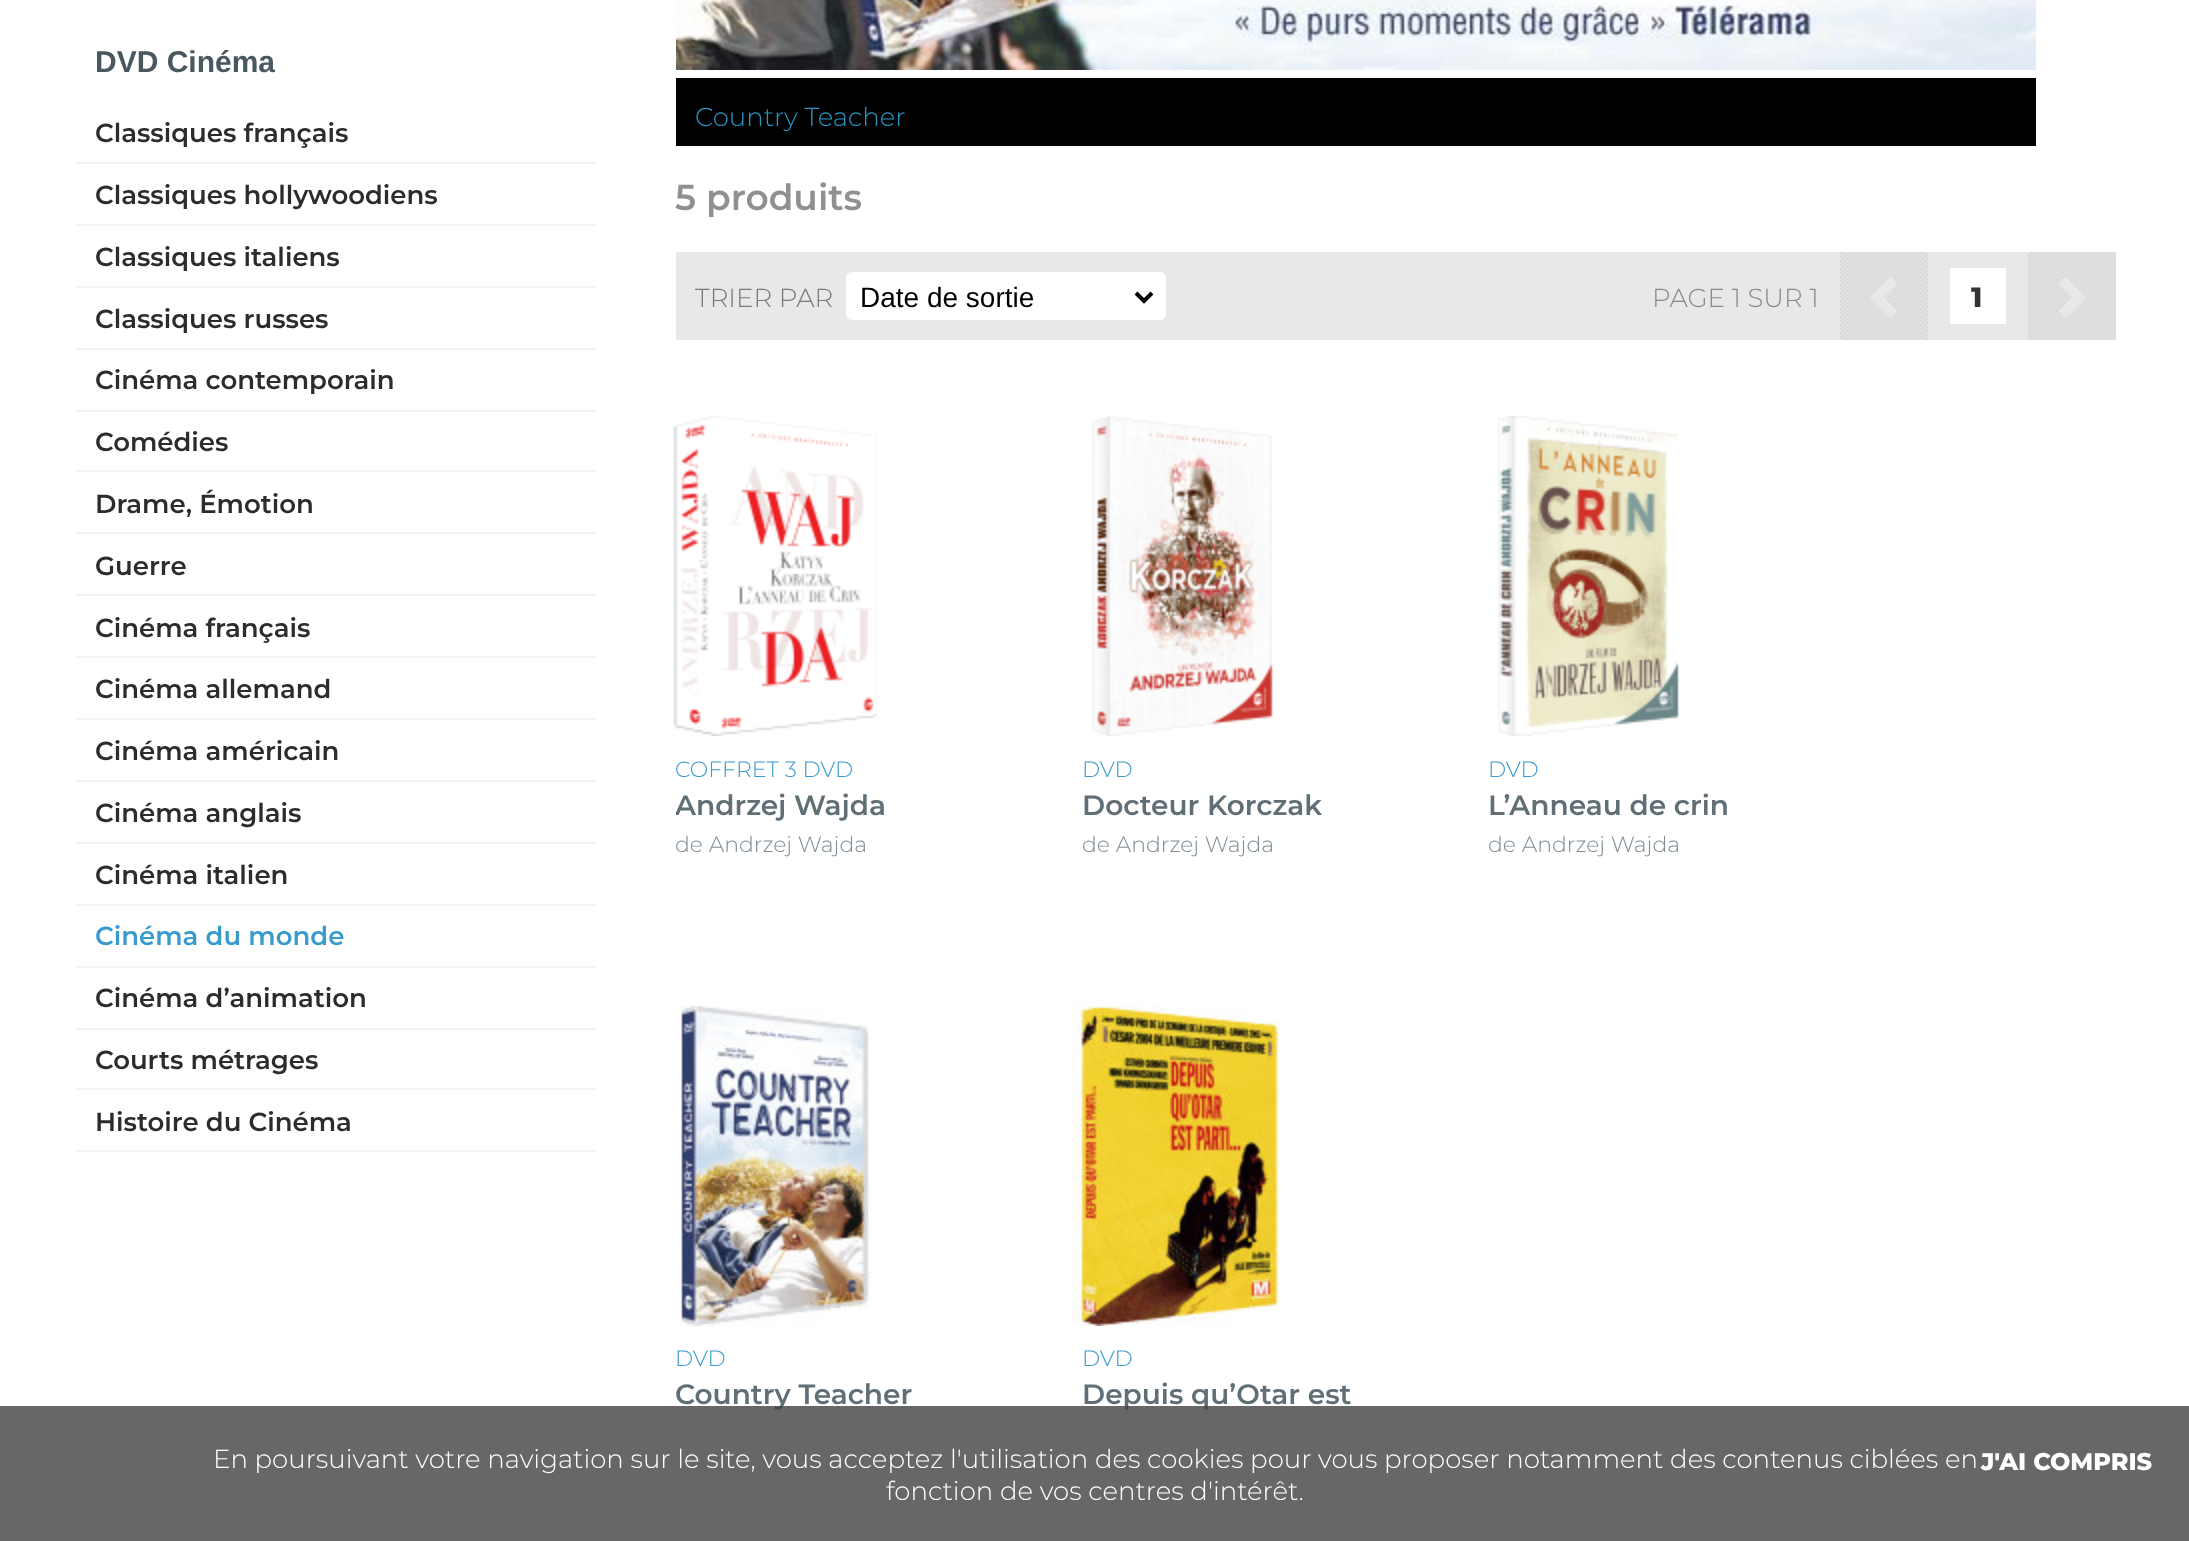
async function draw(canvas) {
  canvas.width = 2189
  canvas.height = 1541
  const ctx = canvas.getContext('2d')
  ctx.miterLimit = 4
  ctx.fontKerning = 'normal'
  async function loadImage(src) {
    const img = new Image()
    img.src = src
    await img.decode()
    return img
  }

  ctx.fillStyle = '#fff'
  ctx.fillRect(0, 0, 2189, 1541)
  ctx.font = 'bold 30px Liberation Sans'
  ctx.fillStyle = '#49575f'
  ctx.fillText('DVD Cinéma', 95, 72)
  ctx.fillStyle = '#f3f3f3'
  ctx.fillRect(76, 162, 520, 2)
  ctx.font = '600 26px Montserrat'
  ctx.fillStyle = '#2b2c2e'
  ctx.fillText('Classiques français', 95, 142)
  ctx.fillStyle = '#f3f3f3'
  ctx.fillRect(76, 224, 520, 2)
  ctx.fillStyle = '#2b2c2e'
  ctx.fillText('Classiques hollywoodiens', 95, 204)
  ctx.fillStyle = '#f3f3f3'
  ctx.fillRect(76, 286, 520, 2)
  ctx.fillStyle = '#2b2c2e'
  ctx.fillText('Classiques italiens', 95, 266)
  ctx.fillStyle = '#f3f3f3'
  ctx.fillRect(76, 348, 520, 2)
  ctx.fillStyle = '#2b2c2e'
  ctx.fillText('Classiques russes', 95, 328)
  ctx.fillStyle = '#f3f3f3'
  ctx.fillRect(76, 410, 520, 2)
  ctx.fillStyle = '#2b2c2e'
  ctx.fillText('Cinéma contemporain', 95, 389)
  ctx.fillStyle = '#f3f3f3'
  ctx.fillRect(76, 470, 520, 2)
  ctx.fillStyle = '#2b2c2e'
  ctx.fillText('Comédies', 95, 451)
  ctx.fillStyle = '#f3f3f3'
  ctx.fillRect(76, 532, 520, 2)
  ctx.fillStyle = '#2b2c2e'
  ctx.fillText('Drame, Émotion', 95, 513)
  ctx.fillStyle = '#f3f3f3'
  ctx.fillRect(76, 594, 520, 2)
  ctx.fillStyle = '#2b2c2e'
  ctx.fillText('Guerre', 95, 575)
  ctx.fillStyle = '#f3f3f3'
  ctx.fillRect(76, 656, 520, 2)
  ctx.fillStyle = '#2b2c2e'
  ctx.fillText('Cinéma français', 95, 637)
  ctx.fillStyle = '#f3f3f3'
  ctx.fillRect(76, 718, 520, 2)
  ctx.fillStyle = '#2b2c2e'
  ctx.fillText('Cinéma allemand', 95, 698)
  ctx.fillStyle = '#f3f3f3'
  ctx.fillRect(76, 780, 520, 2)
  ctx.fillStyle = '#2b2c2e'
  ctx.fillText('Cinéma américain', 95, 760)
  ctx.fillStyle = '#f3f3f3'
  ctx.fillRect(76, 842, 520, 2)
  ctx.fillStyle = '#2b2c2e'
  ctx.fillText('Cinéma anglais', 95, 822)
  ctx.fillStyle = '#f3f3f3'
  ctx.fillRect(76, 904, 520, 2)
  ctx.fillStyle = '#2b2c2e'
  ctx.fillText('Cinéma italien', 95, 884)
  ctx.fillStyle = '#f3f3f3'
  ctx.fillRect(76, 966, 520, 2)
  ctx.fillStyle = '#399bcc'
  ctx.fillText('Cinéma du monde', 95, 945)
  ctx.fillStyle = '#f3f3f3'
  ctx.fillRect(76, 1028, 520, 2)
  ctx.fillStyle = '#2b2c2e'
  ctx.fillText('Cinéma d’animation', 95, 1007)
  ctx.fillStyle = '#f3f3f3'
  ctx.fillRect(76, 1088, 520, 2)
  ctx.fillStyle = '#2b2c2e'
  ctx.fillText('Courts métrages', 95, 1069)
  ctx.fillStyle = '#f3f3f3'
  ctx.fillRect(76, 1150, 520, 2)
  ctx.fillStyle = '#2b2c2e'
  ctx.fillText('Histoire du Cinéma', 95, 1131)
  ctx.drawImage(await loadImage('image0.png'), 676, 0, 1360, 70)
  ctx.fillStyle = '#000'
  ctx.fillRect(676, 78, 1360, 68)
  ctx.font = '300 26px Montserrat'
  ctx.fillStyle = '#2a94c4'
  ctx.fillText('Country Teacher', 695, 126)
  ctx.font = '600 36px Montserrat'
  ctx.fillStyle = '#909090'
  ctx.fillText('5 produits', 675, 210)
  ctx.fillStyle = '#e8e8e8'
  ctx.fillRect(676, 252, 1352, 88)
  ctx.font = '300 26px Montserrat'
  ctx.fillStyle = '#7a7a7a'
  ctx.fillText('TRIER PAR', 695, 307)
  ctx.fillStyle = '#fff'
  ctx.beginPath()
  ctx.roundRect(849, 275, 314, 42, 3)
  ctx.fill()
  ctx.strokeStyle = '#fff'
  ctx.lineWidth = 6
  ctx.stroke()
  ctx.beginPath()
  ctx.moveTo(1136, 293)
  ctx.lineTo(1144, 301)
  ctx.lineTo(1152, 293)
  ctx.strokeStyle = '#000'
  ctx.lineWidth = 4
  ctx.stroke()
  ctx.font = '28px Liberation Sans'
  ctx.fillStyle = '#000'
  ctx.fillText('Date de sortie', 860, 307)
  ctx.font = '300 26px Montserrat'
  ctx.fillStyle = '#8a8a8a'
  ctx.fillText('PAGE 1 SUR 1', 1652, 307)
  ctx.drawImage(await loadImage('image1.png'), 1840, 252, 88, 88)
  ctx.fillStyle = '#fff'
  ctx.fillRect(1950, 268, 56, 56)
  ctx.font = '800 28px Montserrat'
  ctx.fillStyle = '#333'
  ctx.fillText('1', 1971, 307)
  ctx.drawImage(await loadImage('image2.png'), 2028, 252, 88, 88)
  ctx.drawImage(await loadImage('image3.png'), 673, 416, 205, 320)
  ctx.font = '300 22px Montserrat'
  ctx.fillStyle = '#399bcc'
  ctx.fillText('COFFRET 3 DVD', 675, 777)
  ctx.save()
  ctx.beginPath()
  ctx.rect(676, 790, 314, 32)
  ctx.clip()
  ctx.font = '600 28px Montserrat'
  ctx.fillStyle = '#606e76'
  ctx.fillText('Andrzej Wajda', 675, 815)
  ctx.restore()
  ctx.fillStyle = '#808e96'
  ctx.fillText('de Andrzej Wajda', 675, 852)
  ctx.drawImage(await loadImage('image4.png'), 1092, 416, 181, 320)
  ctx.fillStyle = '#399bcc'
  ctx.fillText('DVD', 1082, 777)
  ctx.font = '600 28px Montserrat'
  ctx.fillStyle = '#606e76'
  ctx.fillText('Docteur Korczak', 1082, 815)
  ctx.font = '300 22px Montserrat'
  ctx.fillStyle = '#808e96'
  ctx.fillText('de Andrzej Wajda', 1082, 852)
  ctx.drawImage(await loadImage('image5.png'), 1498, 416, 181, 320)
  ctx.fillStyle = '#399bcc'
  ctx.fillText('DVD', 1488, 777)
  ctx.font = '600 28px Montserrat'
  ctx.fillStyle = '#606e76'
  ctx.fillText('L’Anneau de crin', 1488, 815)
  ctx.font = '300 22px Montserrat'
  ctx.fillStyle = '#808e96'
  ctx.fillText('de Andrzej Wajda', 1488, 852)
  ctx.drawImage(await loadImage('image6.png'), 679, 1006, 193, 320)
  ctx.fillStyle = '#399bcc'
  ctx.fillText('DVD', 675, 1366)
  ctx.font = '600 28px Montserrat'
  ctx.fillStyle = '#606e76'
  ctx.fillText('Country Teacher', 675, 1404)
  ctx.drawImage(await loadImage('image7.png'), 1070, 1006, 209, 320)
  ctx.font = '300 22px Montserrat'
  ctx.fillStyle = '#399bcc'
  ctx.fillText('DVD', 1082, 1366)
  ctx.font = '600 28px Montserrat'
  ctx.fillStyle = '#606e76'
  ctx.fillText('Depuis qu’Otar est', 1082, 1404)
  ctx.fillStyle = '#414141cc'
  ctx.fillRect(0, 1406, 2189, 135)
  ctx.font = '300 26px Montserrat'
  ctx.fillStyle = '#fff'
  ctx.fillText('En poursuivant votre navigation sur le site, vous acceptez l\'utilisation des cookies pour vous proposer notamment des contenus ciblées en', 213, 1468)
  ctx.fillText('fonction de vos centres d\'intérêt.', 886, 1500)
  ctx.font = '800 24px Montserrat'
  ctx.fillText('J\'AI COMPRIS', 1981, 1470)
}

draw(document.querySelector('canvas'))
